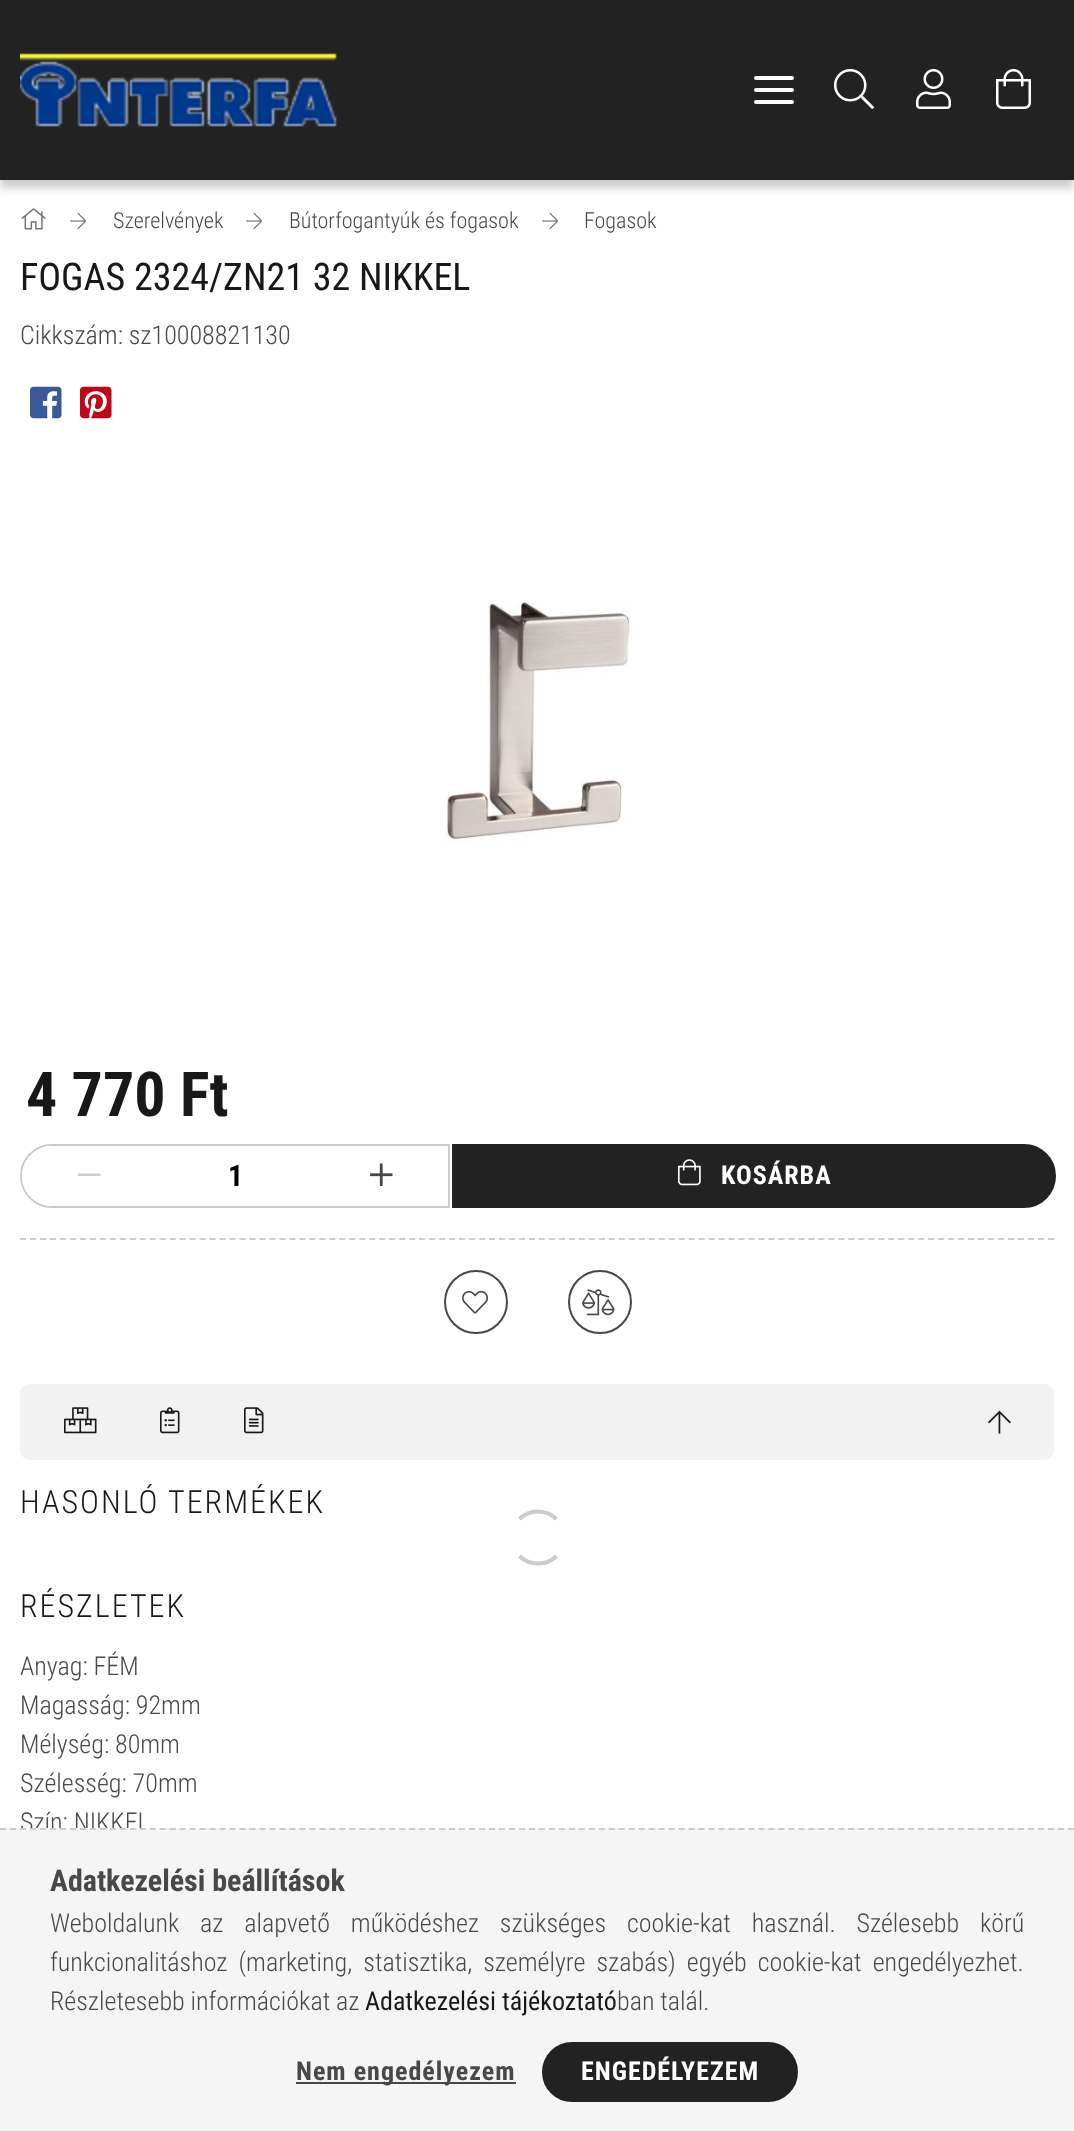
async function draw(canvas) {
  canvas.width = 1074
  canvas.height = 2131
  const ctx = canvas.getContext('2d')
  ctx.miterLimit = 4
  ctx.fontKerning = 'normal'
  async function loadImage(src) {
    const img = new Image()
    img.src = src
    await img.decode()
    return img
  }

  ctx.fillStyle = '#fff'
  ctx.fillRect(0, 0, 1074, 2131)
  ctx.fillStyle = '#00000033'
  ctx.filter = 'blur(4px)'
  ctx.beginPath()
  ctx.rect(0, 8, 1074, 180)
  ctx.fill()
  ctx.filter = 'none'
  ctx.fillStyle = '#222'
  ctx.fillRect(0, 0, 1074, 180)
  ctx.drawImage(await loadImage('image0.png'), 20, 53, 317, 74)
  ctx.fillStyle = '#fff'
  ctx.beginPath()
  ctx.roundRect(754, 76, 40, 4, 2)
  ctx.fill()
  ctx.beginPath()
  ctx.roundRect(754, 88, 40, 4, 2)
  ctx.fill()
  ctx.beginPath()
  ctx.roundRect(754, 100, 40, 4, 2)
  ctx.fill()
  ctx.drawImage(await loadImage('image1.png'), 834, 69, 40, 40)
  ctx.drawImage(await loadImage('image2.png'), 916, 69, 35, 40)
  ctx.drawImage(await loadImage('image3.png'), 996, 69, 35, 40)
  ctx.drawImage(await loadImage('image4.png'), 21, 208, 25, 22)
  ctx.drawImage(await loadImage('image5.png'), 70, 212, 17, 18)
  ctx.font = '300 22px Roboto Condensed'
  ctx.fillStyle = '#484848'
  ctx.fillText('Szerelvények', 113, 228)
  ctx.drawImage(await loadImage('image5.png'), 246, 212, 17, 18)
  ctx.fillText('Bútorfogantyúk és fogasok', 289, 228)
  ctx.drawImage(await loadImage('image5.png'), 542, 212, 17, 18)
  ctx.fillText('Fogasok', 584, 228)
  ctx.font = '38px Roboto Condensed'
  ctx.fillStyle = '#181818'
  ctx.fillText('FOGAS 2324/ZN21 32 NIKKEL', 20, 290)
  ctx.font = '300 26px Roboto Condensed'
  ctx.fillStyle = '#484848'
  ctx.fillText('Cikkszám: sz10008821130', 20, 344)
  ctx.drawImage(await loadImage('image6.png'), 30, 386, 32, 33)
  ctx.drawImage(await loadImage('image7.png'), 80, 386, 32, 33)
  ctx.drawImage(await loadImage('image8.png'), 445, 602, 185, 242)
  ctx.font = 'bold 62px Roboto Condensed'
  ctx.fillStyle = '#181818'
  ctx.fillText('4 770 Ft', 26, 1116)
  ctx.beginPath()
  ctx.roundRect(21, 1145, 428, 62, [31, 0, 0, 31])
  ctx.strokeStyle = '#ccc'
  ctx.lineWidth = 2
  ctx.stroke()
  ctx.fillStyle = '#fff'
  ctx.beginPath()
  ctx.roundRect(22, 1146, 136, 60, [30, 0, 0, 30])
  ctx.fill()
  ctx.fillStyle = '#ccc'
  ctx.beginPath()
  ctx.moveTo(100, 1173.5)
  ctx.bezierCurveTo(101, 1173.5, 101, 1176, 100, 1176)
  ctx.lineTo(78, 1176)
  ctx.lineTo(78, 1174)
  ctx.lineTo(78, 1173.5)
  ctx.closePath()
  ctx.fill()
  ctx.font = 'bold 30px Roboto Condensed'
  ctx.fillStyle = '#000'
  ctx.fillText('1', 228, 1186)
  ctx.drawImage(await loadImage('image9.png'), 370, 1163, 23, 23)
  ctx.fillStyle = '#222'
  ctx.beginPath()
  ctx.roundRect(453, 1145, 602, 62, [0, 31, 31, 0])
  ctx.fill()
  ctx.strokeStyle = '#222'
  ctx.stroke()
  ctx.drawImage(await loadImage('image10.png'), 678, 1159, 23, 27)
  ctx.letterSpacing = '1px'
  ctx.font = 'bold 26px Roboto Condensed'
  ctx.fillStyle = '#fff'
  ctx.fillText('KOSÁRBA', 721, 1184)
  ctx.beginPath()
  ctx.moveTo(20, 1239)
  ctx.lineTo(1054, 1239)
  ctx.strokeStyle = '#ccc'
  ctx.setLineDash([6, 3.98])
  ctx.stroke()
  ctx.beginPath()
  ctx.arc(476, 1302, 31, 0, 2 * Math.PI)
  ctx.strokeStyle = '#484848'
  ctx.setLineDash([])
  ctx.stroke()
  ctx.drawImage(await loadImage('image11.png'), 462, 1290, 27, 24)
  ctx.beginPath()
  ctx.arc(600, 1302, 31, 0, 2 * Math.PI)
  ctx.stroke()
  ctx.drawImage(await loadImage('image12.png'), 582, 1289, 33, 27)
  ctx.fillStyle = '#f2f2f2'
  ctx.beginPath()
  ctx.roundRect(20, 1384, 1034, 76, 10)
  ctx.fill()
  ctx.drawImage(await loadImage('image13.png'), 64, 1407, 33, 27)
  ctx.drawImage(await loadImage('image14.png'), 160, 1407, 20, 27)
  ctx.drawImage(await loadImage('image15.png'), 244, 1407, 20, 27)
  ctx.drawImage(await loadImage('image16.png'), 988, 1410, 23, 24)
  ctx.letterSpacing = '2px'
  ctx.font = '300 32px Roboto Condensed'
  ctx.fillStyle = '#181818'
  ctx.fillText('HASONLÓ TERMÉKEK', 20, 1513)
  ctx.beginPath()
  ctx.moveTo(519.5, 1519)
  ctx.bezierCurveTo(529.5, 1509, 546.5, 1509, 556.5, 1519)
  ctx.moveTo(556.5, 1556)
  ctx.bezierCurveTo(546.5, 1566, 529.5, 1566, 519.5, 1556)
  ctx.strokeStyle = '#ccc'
  ctx.lineWidth = 4
  ctx.stroke()
  ctx.fillText('RÉSZLETEK', 20, 1617)
  ctx.letterSpacing = '0px'
  ctx.font = '300 26px Roboto Condensed'
  ctx.fillStyle = '#484848'
  ctx.fillText('Anyag: FÉM', 20, 1675)
  ctx.fillText('Magasság: 92mm', 20, 1714)
  ctx.fillText('Mélység: 80mm', 20, 1753)
  ctx.fillText('Szélesség: 70mm', 20, 1792)
  ctx.fillText('Szín: NIKKEL', 20, 1831)
  ctx.fillStyle = '#f5f5f5'
  ctx.fillRect(0, 1828, 1074, 303)
  ctx.beginPath()
  ctx.moveTo(0, 1829)
  ctx.lineTo(1074, 1829)
  ctx.lineWidth = 2
  ctx.setLineDash([6, 3.98])
  ctx.stroke()
  ctx.font = 'bold 30px Roboto Condensed'
  ctx.fillStyle = '#484848'
  ctx.fillText('Adatkezelési beállítások', 50, 1891)
  ctx.wordSpacing = '15px'
  ctx.font = '300 26px Roboto Condensed'
  ctx.fillText('Weboldalunk az alapvető működéshez szükséges cookie-kat használ. Szélesebb körű', 50, 1932)
  ctx.wordSpacing = '5.25px'
  ctx.fillText('funkcionalitáshoz (marketing, statisztika, személyre szabás) egyéb cookie-kat engedélyezhet.', 50, 1971)
  ctx.wordSpacing = '0px'
  ctx.fillText('Részletesebb információkat az', 50, 2010)
  ctx.font = '26px Roboto Condensed'
  ctx.fillStyle = '#181818'
  ctx.fillText('Adatkezelési tájékoztató', 365, 2010)
  ctx.font = '300 26px Roboto Condensed'
  ctx.fillStyle = '#484848'
  ctx.fillText('ban talál.', 617, 2010)
  ctx.fillRect(296, 2082, 220, 2)
  ctx.letterSpacing = '1px'
  ctx.font = 'bold 26px Roboto Condensed'
  ctx.fillText('Nem engedélyezem', 296, 2080)
  ctx.fillStyle = '#222'
  ctx.beginPath()
  ctx.roundRect(543, 2043, 254, 58, 29)
  ctx.fill()
  ctx.strokeStyle = '#222'
  ctx.setLineDash([])
  ctx.stroke()
  ctx.fillStyle = '#fff'
  ctx.fillText('ENGEDÉLYEZEM', 581, 2080)
}

draw(document.querySelector('canvas'))
